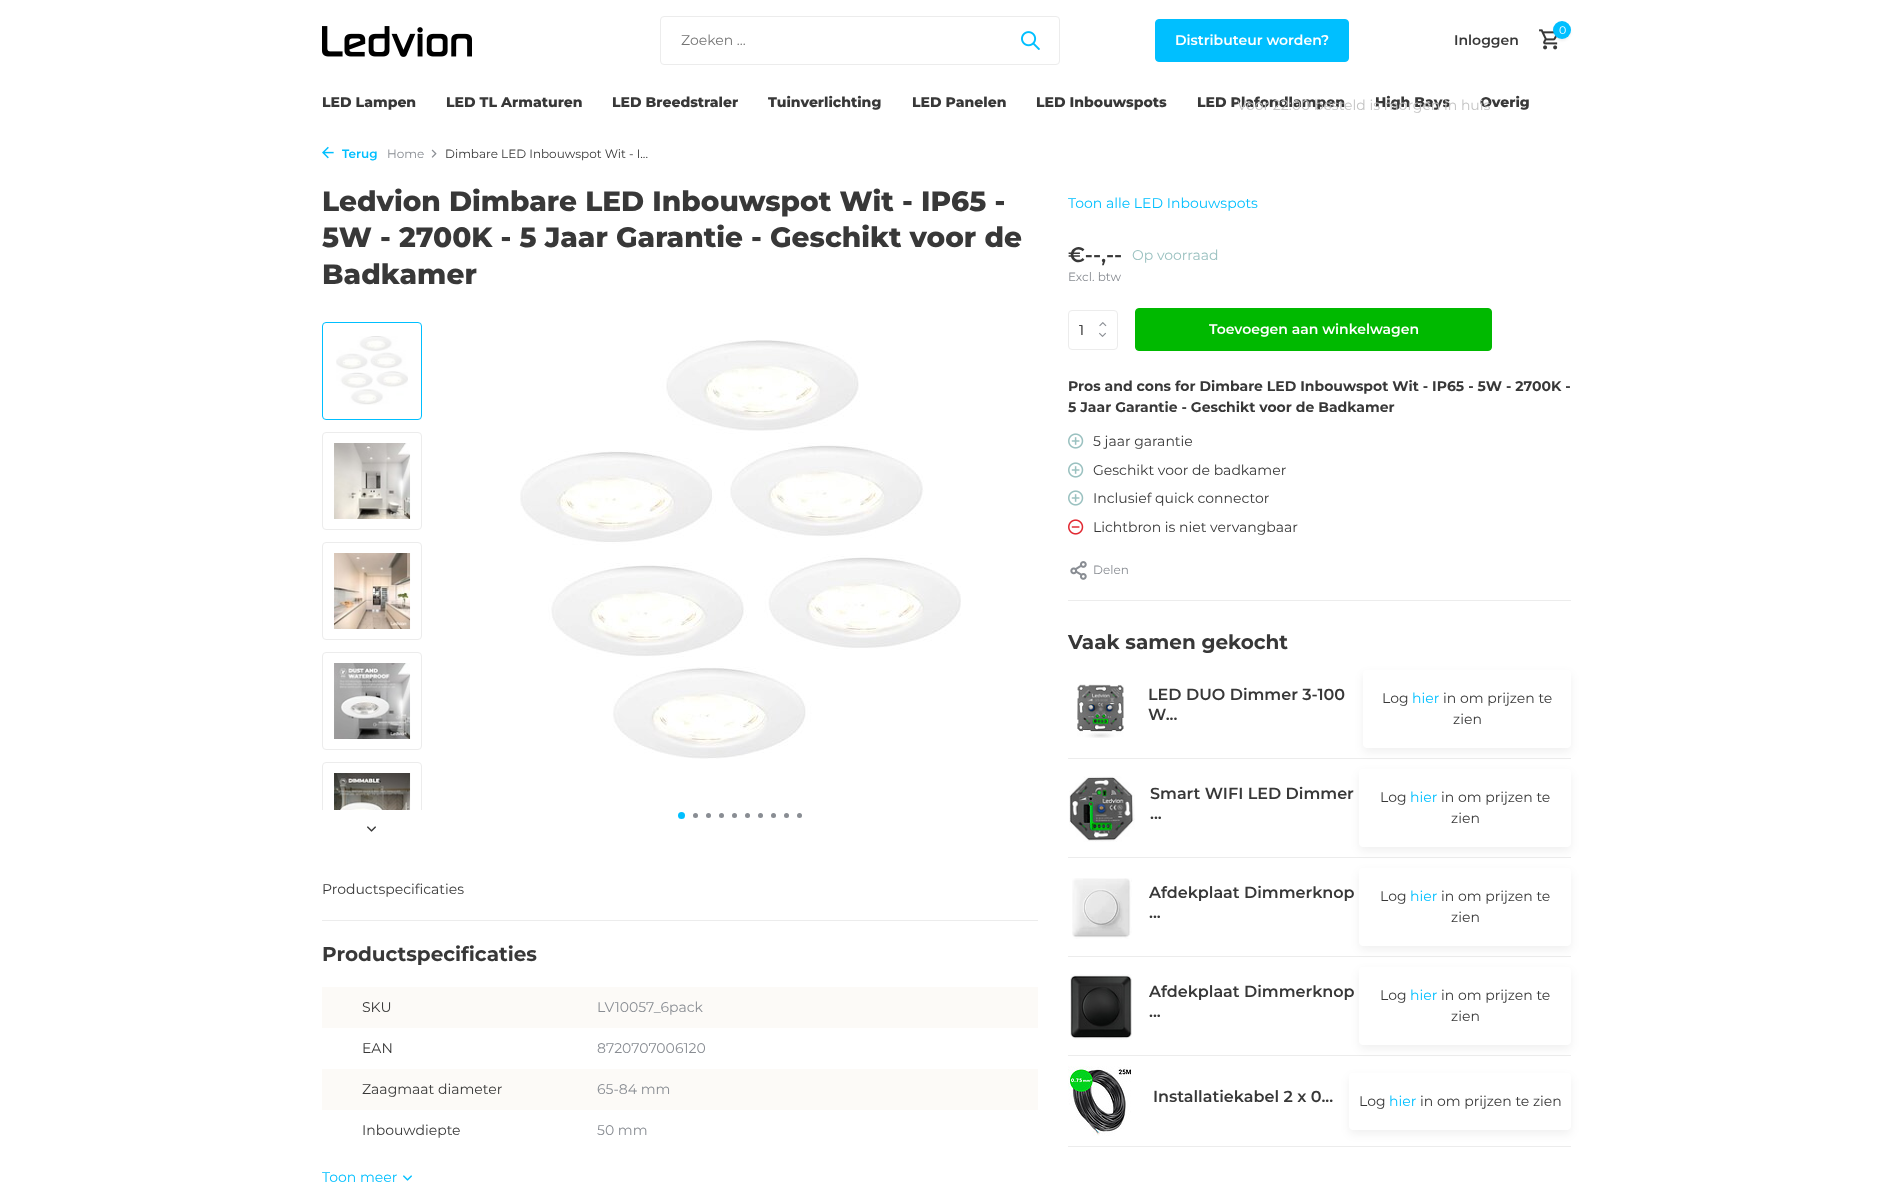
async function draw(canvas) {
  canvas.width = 1893
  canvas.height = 1188
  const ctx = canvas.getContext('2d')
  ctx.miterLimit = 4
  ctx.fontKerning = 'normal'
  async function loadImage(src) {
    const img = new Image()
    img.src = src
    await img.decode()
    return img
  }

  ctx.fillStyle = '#fff'
  ctx.fillRect(0, 0, 1893, 1188)
  ctx.drawImage(await loadImage('image0.png'), 322, 26, 150, 31)
  ctx.beginPath()
  ctx.roundRect(660.5, 16.5, 399, 48, 3.5)
  ctx.strokeStyle = '#ececec'
  ctx.stroke()
  ctx.font = '14px Montserrat'
  ctx.fillStyle = '#757575'
  ctx.fillText('Zoeken ...', 681, 45)
  ctx.drawImage(await loadImage('image1.png'), 1021, 31, 19, 19)
  ctx.drawImage(await loadImage('image2.png'), 1539, 29, 19, 21)
  ctx.fillStyle = '#0000000f'
  ctx.filter = 'blur(1px)'
  ctx.beginPath()
  ctx.roundRect(1553, 23, 18, 18, 9)
  ctx.fill()
  ctx.filter = 'none'
  ctx.fillStyle = '#00bfff'
  ctx.beginPath()
  ctx.arc(1562, 30, 9, 0, 2 * Math.PI)
  ctx.fill()
  ctx.font = '11px Montserrat'
  ctx.fillStyle = '#fff'
  ctx.fillText('0', 1559, 34)
  ctx.font = '600 14px Montserrat'
  ctx.fillStyle = '#383838'
  ctx.fillText('Inloggen', 1454, 45)
  ctx.font = '800 14px Montserrat'
  ctx.fillText('LED Plafondlampen', 1197, 107)
  ctx.fillText('High Bays', 1375, 107)
  ctx.fillText('Overig', 1480, 107)
  ctx.font = '14px Montserrat'
  ctx.fillStyle = '#c3c3c3'
  ctx.fillText('Voor 22:00 besteld is morgen in huis', 1237, 110)
  ctx.fillStyle = '#00bfff'
  ctx.beginPath()
  ctx.roundRect(1155.5, 19.5, 193, 42, 3.5)
  ctx.fill()
  ctx.strokeStyle = '#00bfff'
  ctx.stroke()
  ctx.font = '600 14px Montserrat'
  ctx.fillStyle = '#fff'
  ctx.fillText('Distributeur worden?', 1175, 45)
  ctx.font = '800 14px Montserrat'
  ctx.fillStyle = '#383838'
  ctx.fillText('LED Lampen', 322, 107)
  ctx.fillText('LED TL Armaturen', 446, 107)
  ctx.fillText('LED Breedstraler', 612, 107)
  ctx.fillText('Tuinverlichting', 768, 107)
  ctx.fillText('LED Panelen', 912, 107)
  ctx.fillText('LED Inbouwspots', 1036, 107)
  ctx.drawImage(await loadImage('image3.png'), 322, 146, 12, 13)
  ctx.font = '600 12px Montserrat'
  ctx.fillStyle = '#00bfff'
  ctx.fillText('Terug', 342, 158)
  ctx.font = '12px Montserrat'
  ctx.fillStyle = '#898d93'
  ctx.fillText('Home', 387, 158)
  ctx.drawImage(await loadImage('image4.png'), 431, 149, 6, 9)
  ctx.fillStyle = '#383838'
  ctx.fillText('Dimbare LED Inbouwspot Wit - I...', 445, 158)
  ctx.font = '800 28px Montserrat'
  ctx.fillText('Ledvion Dimbare LED Inbouwspot Wit - IP65 -', 322, 211)
  ctx.fillText('5W - 2700K - 5 Jaar Garantie - Geschikt voor de', 322, 247)
  ctx.fillText('Badkamer', 322, 284)
  ctx.beginPath()
  ctx.roundRect(322.5, 322.5, 99, 97, 3.5)
  ctx.stroke()
  ctx.drawImage(await loadImage('image5.png'), 336, 336, 72, 69)
  ctx.beginPath()
  ctx.roundRect(322.5, 432.5, 99, 97, 3.5)
  ctx.strokeStyle = '#ececec'
  ctx.stroke()
  ctx.drawImage(await loadImage('image6.png'), 334, 443, 77, 76)
  ctx.beginPath()
  ctx.roundRect(322.5, 542.5, 99, 97, 3.5)
  ctx.stroke()
  ctx.drawImage(await loadImage('image7.png'), 334, 553, 77, 76)
  ctx.beginPath()
  ctx.roundRect(322.5, 652.5, 99, 97, 3.5)
  ctx.stroke()
  ctx.drawImage(await loadImage('image8.png'), 334, 663, 77, 76)
  ctx.drawImage(await loadImage('image10.png'), 367, 826, 9, 6)
  ctx.save()
  ctx.beginPath()
  ctx.rect(322, 322, 100, 488)
  ctx.clip()
  ctx.beginPath()
  ctx.roundRect(322.5, 762.5, 99, 97, 3.5)
  ctx.stroke()
  ctx.restore()
  ctx.drawImage(await loadImage('image9.png'), 334, 773, 77, 37)
  ctx.drawImage(await loadImage('image11.png'), 520, 340, 441, 419)
  ctx.fillStyle = '#00bfff'
  ctx.beginPath()
  ctx.arc(681.5, 815.5, 3.5, 0, 2 * Math.PI)
  ctx.fill()
  ctx.fillStyle = '#898d93'
  ctx.beginPath()
  ctx.arc(695.5, 815.5, 2.5, 0, 2 * Math.PI)
  ctx.fill()
  ctx.beginPath()
  ctx.arc(708.5, 815.5, 2.5, 0, 2 * Math.PI)
  ctx.fill()
  ctx.beginPath()
  ctx.arc(721.5, 815.5, 2.5, 0, 2 * Math.PI)
  ctx.fill()
  ctx.beginPath()
  ctx.arc(734.5, 815.5, 2.5, 0, 2 * Math.PI)
  ctx.fill()
  ctx.beginPath()
  ctx.arc(747.5, 815.5, 2.5, 0, 2 * Math.PI)
  ctx.fill()
  ctx.beginPath()
  ctx.arc(760.5, 815.5, 2.5, 0, 2 * Math.PI)
  ctx.fill()
  ctx.beginPath()
  ctx.arc(773.5, 815.5, 2.5, 0, 2 * Math.PI)
  ctx.fill()
  ctx.beginPath()
  ctx.arc(786.5, 815.5, 2.5, 0, 2 * Math.PI)
  ctx.fill()
  ctx.beginPath()
  ctx.arc(799.5, 815.5, 2.5, 0, 2 * Math.PI)
  ctx.fill()
  ctx.fillStyle = '#ececec'
  ctx.fillRect(322, 920, 716, 1)
  ctx.font = '14px Montserrat'
  ctx.fillStyle = '#383838'
  ctx.fillText('Productspecificaties', 322, 894)
  ctx.font = 'bold 20px Montserrat'
  ctx.fillText('Productspecificaties', 322, 961)
  ctx.fillStyle = '#fcfaf7'
  ctx.fillRect(322, 987, 716, 41)
  ctx.font = '14px Montserrat'
  ctx.fillStyle = '#383838'
  ctx.fillText('SKU', 362, 1012)
  ctx.fillStyle = '#898d93'
  ctx.fillText('LV10057_6pack', 597, 1012)
  ctx.fillStyle = '#383838'
  ctx.fillText('EAN', 362, 1053)
  ctx.fillStyle = '#898d93'
  ctx.fillText('8720707006120', 597, 1053)
  ctx.fillStyle = '#fcfaf7'
  ctx.fillRect(322, 1069, 716, 41)
  ctx.fillStyle = '#383838'
  ctx.fillText('Zaagmaat diameter', 362, 1094)
  ctx.fillStyle = '#898d93'
  ctx.fillText('65-84 mm', 597, 1094)
  ctx.fillStyle = '#383838'
  ctx.fillText('Inbouwdiepte', 362, 1135)
  ctx.fillStyle = '#898d93'
  ctx.fillText('50 mm', 597, 1135)
  ctx.fillStyle = '#00bfff'
  ctx.fillText('Toon meer', 322, 1182)
  ctx.drawImage(await loadImage('image12.png'), 403, 1175, 9, 6)
  ctx.fillText('Toon alle LED Inbouwspots', 1068, 208)
  ctx.font = '600 21px Montserrat'
  ctx.fillStyle = '#383838'
  ctx.fillText('€--,--', 1068, 262)
  ctx.font = '14px Montserrat'
  ctx.fillStyle = '#9ac1c0'
  ctx.fillText('Op voorraad', 1132, 260)
  ctx.font = '12px Montserrat'
  ctx.fillStyle = '#898d93'
  ctx.fillText('Excl. btw', 1068, 281)
  ctx.beginPath()
  ctx.roundRect(1068.5, 310.5, 49, 39, 3.5)
  ctx.stroke()
  ctx.drawImage(await loadImage('image13.png'), 1099, 322, 8, 5)
  ctx.font = '14px Montserrat'
  ctx.fillStyle = '#000'
  ctx.fillText('1', 1079, 335)
  ctx.drawImage(await loadImage('image14.png'), 1099, 332, 7, 5)
  ctx.fillStyle = '#00b900'
  ctx.beginPath()
  ctx.roundRect(1135.5, 308.5, 356, 42, 3.5)
  ctx.fill()
  ctx.strokeStyle = '#00b900'
  ctx.stroke()
  ctx.font = '600 14px Montserrat'
  ctx.fillStyle = '#fff'
  ctx.fillText('Toevoegen aan winkelwagen', 1209, 334)
  ctx.font = 'bold 14px Montserrat'
  ctx.fillStyle = '#383838'
  ctx.fillText('Pros and cons for Dimbare LED Inbouwspot Wit - IP65 - 5W - 2700K -', 1068, 391)
  ctx.fillText('5 Jaar Garantie - Geschikt voor de Badkamer', 1068, 412)
  ctx.drawImage(await loadImage('image15.png'), 1068, 433, 16, 16)
  ctx.font = '14px Montserrat'
  ctx.fillText('5 jaar garantie', 1093, 446)
  ctx.drawImage(await loadImage('image15.png'), 1068, 462, 16, 16)
  ctx.fillText('Geschikt voor de badkamer', 1093, 475)
  ctx.drawImage(await loadImage('image15.png'), 1068, 490, 16, 16)
  ctx.fillText('Inclusief quick connector', 1093, 503)
  ctx.drawImage(await loadImage('image16.png'), 1068, 519, 16, 16)
  ctx.fillText('Lichtbron is niet vervangbaar', 1093, 532)
  ctx.drawImage(await loadImage('image17.png'), 1070, 561, 17, 19)
  ctx.font = '12px Montserrat'
  ctx.fillStyle = '#898d93'
  ctx.fillText('Delen', 1093, 574)
  ctx.fillStyle = '#ececec'
  ctx.fillRect(1068, 600, 503, 1)
  ctx.font = 'bold 20px Montserrat'
  ctx.fillStyle = '#383838'
  ctx.fillText('Vaak samen gekocht', 1068, 649)
  ctx.fillStyle = '#ececec'
  ctx.fillRect(1068, 758, 503, 1)
  ctx.drawImage(await loadImage('image18.png'), 1077, 684, 47, 54)
  ctx.font = '600 16px Montserrat'
  ctx.fillStyle = '#383838'
  ctx.fillText('LED DUO Dimmer 3-100', 1148, 700)
  ctx.fillText('W...', 1148, 720)
  ctx.save()
  ctx.beginPath()
  ctx.moveTo(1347, 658)
  ctx.lineTo(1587, 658)
  ctx.lineTo(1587, 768)
  ctx.lineTo(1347, 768)
  ctx.closePath()
  ctx.moveTo(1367, 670)
  ctx.lineTo(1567, 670)
  ctx.bezierCurveTo(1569, 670, 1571, 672, 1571, 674)
  ctx.lineTo(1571, 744)
  ctx.bezierCurveTo(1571, 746, 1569, 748, 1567, 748)
  ctx.lineTo(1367, 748)
  ctx.bezierCurveTo(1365, 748, 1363, 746, 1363, 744)
  ctx.lineTo(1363, 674)
  ctx.bezierCurveTo(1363, 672, 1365, 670, 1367, 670)
  ctx.closePath()
  ctx.clip('evenodd')
  ctx.fillStyle = '#0000000f'
  ctx.filter = 'blur(5px)'
  ctx.beginPath()
  ctx.roundRect(1363, 674, 208, 78, 4)
  ctx.fill()
  ctx.filter = 'none'
  ctx.restore()
  ctx.font = '14px Montserrat'
  ctx.fillText('Log', 1382, 703)
  ctx.fillStyle = '#00bfff'
  ctx.fillText('hier', 1412, 703)
  ctx.fillStyle = '#383838'
  ctx.fillText('in om prijzen te', 1443, 703)
  ctx.fillText('zien', 1453, 724)
  ctx.fillStyle = '#ececec'
  ctx.fillRect(1068, 857, 503, 1)
  ctx.drawImage(await loadImage('image19.png'), 1069, 776, 66, 66)
  ctx.font = '600 16px Montserrat'
  ctx.fillStyle = '#383838'
  ctx.fillText('Smart WIFI LED Dimmer', 1150, 799)
  ctx.fillText('...', 1150, 819)
  ctx.save()
  ctx.beginPath()
  ctx.moveTo(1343, 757)
  ctx.lineTo(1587, 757)
  ctx.lineTo(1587, 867)
  ctx.lineTo(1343, 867)
  ctx.closePath()
  ctx.moveTo(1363, 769)
  ctx.lineTo(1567, 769)
  ctx.bezierCurveTo(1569, 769, 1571, 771, 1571, 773)
  ctx.lineTo(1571, 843)
  ctx.bezierCurveTo(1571, 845, 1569, 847, 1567, 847)
  ctx.lineTo(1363, 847)
  ctx.bezierCurveTo(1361, 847, 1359, 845, 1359, 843)
  ctx.lineTo(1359, 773)
  ctx.bezierCurveTo(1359, 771, 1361, 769, 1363, 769)
  ctx.closePath()
  ctx.clip('evenodd')
  ctx.fillStyle = '#0000000f'
  ctx.filter = 'blur(5px)'
  ctx.beginPath()
  ctx.roundRect(1359, 773, 212, 78, 4)
  ctx.fill()
  ctx.filter = 'none'
  ctx.restore()
  ctx.font = '14px Montserrat'
  ctx.fillText('Log', 1380, 802)
  ctx.fillStyle = '#00bfff'
  ctx.fillText('hier', 1410, 802)
  ctx.fillStyle = '#383838'
  ctx.fillText('in om prijzen te', 1441, 802)
  ctx.fillText('zien', 1451, 823)
  ctx.fillStyle = '#ececec'
  ctx.fillRect(1068, 956, 503, 1)
  ctx.drawImage(await loadImage('image20.png'), 1072, 878, 60, 61)
  ctx.font = '600 16px Montserrat'
  ctx.fillStyle = '#383838'
  ctx.fillText('Afdekplaat Dimmerknop', 1149, 898)
  ctx.fillText('...', 1149, 918)
  ctx.save()
  ctx.beginPath()
  ctx.moveTo(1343, 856)
  ctx.lineTo(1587, 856)
  ctx.lineTo(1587, 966)
  ctx.lineTo(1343, 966)
  ctx.closePath()
  ctx.moveTo(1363, 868)
  ctx.lineTo(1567, 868)
  ctx.bezierCurveTo(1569, 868, 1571, 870, 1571, 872)
  ctx.lineTo(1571, 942)
  ctx.bezierCurveTo(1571, 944, 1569, 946, 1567, 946)
  ctx.lineTo(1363, 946)
  ctx.bezierCurveTo(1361, 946, 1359, 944, 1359, 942)
  ctx.lineTo(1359, 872)
  ctx.bezierCurveTo(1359, 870, 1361, 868, 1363, 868)
  ctx.closePath()
  ctx.clip('evenodd')
  ctx.fillStyle = '#0000000f'
  ctx.filter = 'blur(5px)'
  ctx.beginPath()
  ctx.roundRect(1359, 872, 212, 78, 4)
  ctx.fill()
  ctx.filter = 'none'
  ctx.restore()
  ctx.font = '14px Montserrat'
  ctx.fillText('Log', 1380, 901)
  ctx.fillStyle = '#00bfff'
  ctx.fillText('hier', 1410, 901)
  ctx.fillStyle = '#383838'
  ctx.fillText('in om prijzen te', 1441, 901)
  ctx.fillText('zien', 1451, 922)
  ctx.fillStyle = '#ececec'
  ctx.fillRect(1068, 1055, 503, 1)
  ctx.drawImage(await loadImage('image21.png'), 1070, 974, 62, 66)
  ctx.font = '600 16px Montserrat'
  ctx.fillStyle = '#383838'
  ctx.fillText('Afdekplaat Dimmerknop', 1149, 997)
  ctx.fillText('...', 1149, 1017)
  ctx.save()
  ctx.beginPath()
  ctx.moveTo(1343, 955)
  ctx.lineTo(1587, 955)
  ctx.lineTo(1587, 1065)
  ctx.lineTo(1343, 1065)
  ctx.closePath()
  ctx.moveTo(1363, 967)
  ctx.lineTo(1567, 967)
  ctx.bezierCurveTo(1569, 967, 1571, 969, 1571, 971)
  ctx.lineTo(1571, 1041)
  ctx.bezierCurveTo(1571, 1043, 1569, 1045, 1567, 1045)
  ctx.lineTo(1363, 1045)
  ctx.bezierCurveTo(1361, 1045, 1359, 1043, 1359, 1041)
  ctx.lineTo(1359, 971)
  ctx.bezierCurveTo(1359, 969, 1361, 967, 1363, 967)
  ctx.closePath()
  ctx.clip('evenodd')
  ctx.fillStyle = '#0000000f'
  ctx.filter = 'blur(5px)'
  ctx.beginPath()
  ctx.roundRect(1359, 971, 212, 78, 4)
  ctx.fill()
  ctx.filter = 'none'
  ctx.restore()
  ctx.font = '14px Montserrat'
  ctx.fillText('Log', 1380, 1000)
  ctx.fillStyle = '#00bfff'
  ctx.fillText('hier', 1410, 1000)
  ctx.fillStyle = '#383838'
  ctx.fillText('in om prijzen te', 1441, 1000)
  ctx.fillText('zien', 1451, 1021)
  ctx.fillStyle = '#ececec'
  ctx.fillRect(1068, 1146, 503, 1)
  ctx.drawImage(await loadImage('image22.png'), 1068, 1066, 63, 70)
  ctx.font = '600 16px Montserrat'
  ctx.fillStyle = '#383838'
  ctx.fillText('Installatiekabel 2 x 0...', 1153, 1102)
  ctx.save()
  ctx.beginPath()
  ctx.moveTo(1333, 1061)
  ctx.lineTo(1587, 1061)
  ctx.lineTo(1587, 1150)
  ctx.lineTo(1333, 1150)
  ctx.closePath()
  ctx.moveTo(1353, 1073)
  ctx.lineTo(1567, 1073)
  ctx.bezierCurveTo(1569, 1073, 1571, 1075, 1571, 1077)
  ctx.lineTo(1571, 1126)
  ctx.bezierCurveTo(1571, 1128, 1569, 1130, 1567, 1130)
  ctx.lineTo(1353, 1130)
  ctx.bezierCurveTo(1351, 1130, 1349, 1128, 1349, 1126)
  ctx.lineTo(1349, 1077)
  ctx.bezierCurveTo(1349, 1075, 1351, 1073, 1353, 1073)
  ctx.closePath()
  ctx.clip('evenodd')
  ctx.fillStyle = '#0000000f'
  ctx.filter = 'blur(5px)'
  ctx.beginPath()
  ctx.roundRect(1349, 1077, 222, 57, 4)
  ctx.fill()
  ctx.filter = 'none'
  ctx.restore()
  ctx.font = '14px Montserrat'
  ctx.fillText('Log', 1359, 1106)
  ctx.fillStyle = '#00bfff'
  ctx.fillText('hier', 1389, 1106)
  ctx.fillStyle = '#383838'
  ctx.fillText('in om prijzen te zien', 1420, 1106)
}

draw(document.querySelector('canvas'))
